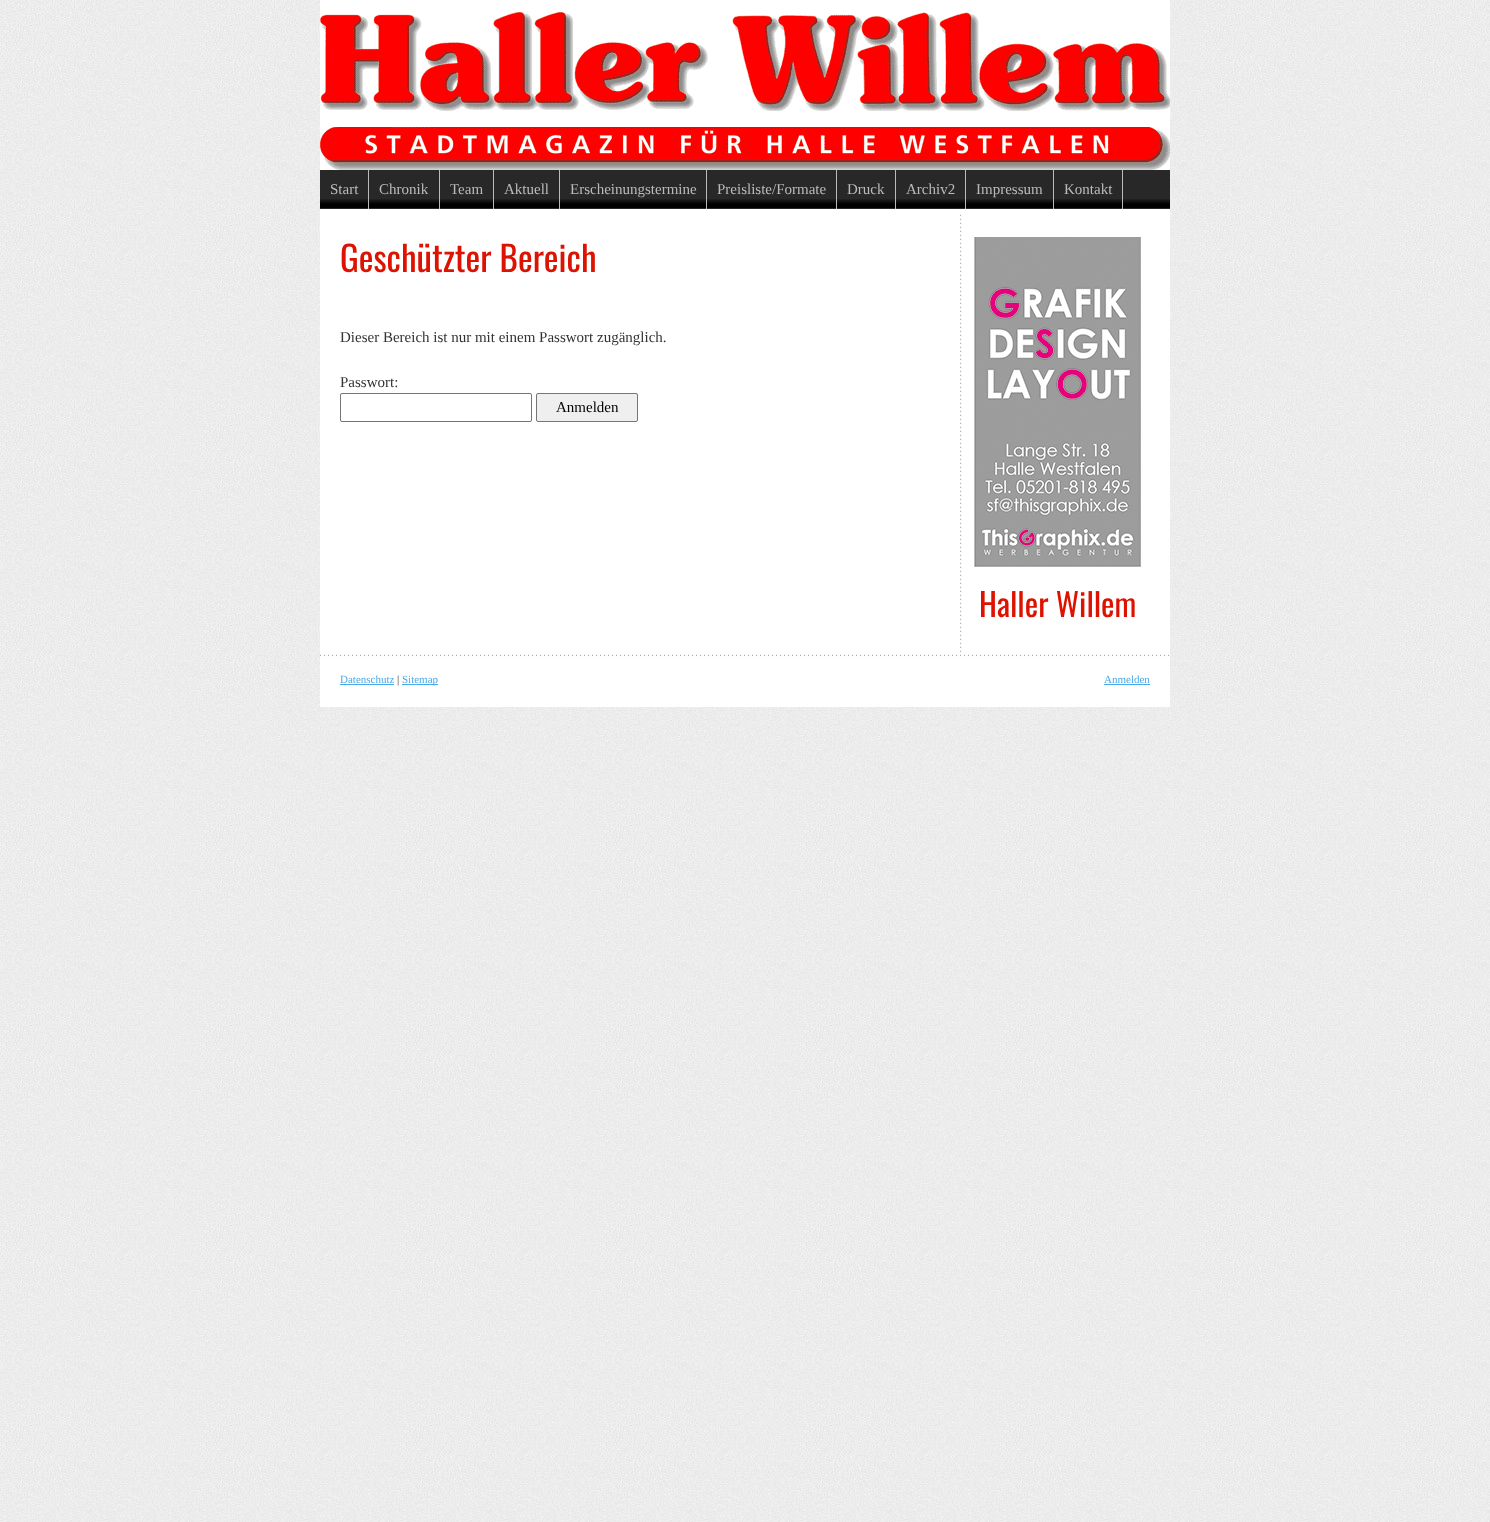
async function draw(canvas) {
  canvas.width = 1490
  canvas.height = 1522
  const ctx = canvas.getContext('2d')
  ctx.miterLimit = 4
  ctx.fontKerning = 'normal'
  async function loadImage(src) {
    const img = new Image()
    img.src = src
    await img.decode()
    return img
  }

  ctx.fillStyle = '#fff'
  ctx.fillRect(0, 0, 1490, 1522)
  ctx.drawImage(await loadImage('image0.png'), 0, 0, 1490, 1522)
  ctx.drawImage(await loadImage('image1.png'), 320, 0, 850, 170)
  ctx.fillStyle = '#282828'
  ctx.fillRect(320, 170, 850, 39)
  ctx.drawImage(await loadImage('image2.png'), 320, 199, 850, 9)
  ctx.fillStyle = '#bbb'
  ctx.fillRect(368, 170, 1, 39)
  ctx.font = '15px Liberation Serif'
  ctx.fillText('Start', 330, 194)
  ctx.fillRect(439, 170, 1, 39)
  ctx.fillText('Chronik', 379, 194)
  ctx.fillRect(493, 170, 1, 39)
  ctx.fillText('Team', 450, 194)
  ctx.fillRect(559, 170, 1, 39)
  ctx.fillText('Aktuell', 504, 194)
  ctx.fillRect(706, 170, 1, 39)
  ctx.fillText('Erscheinungstermine', 570, 194)
  ctx.fillRect(836, 170, 1, 39)
  ctx.fillText('Preisliste/Formate', 717, 194)
  ctx.fillRect(895, 170, 1, 39)
  ctx.fillText('Druck', 847, 194)
  ctx.fillRect(965, 170, 1, 39)
  ctx.fillText('Archiv2', 906, 194)
  ctx.fillRect(1053, 170, 1, 39)
  ctx.fillText('Impressum', 976, 194)
  ctx.fillRect(1122, 170, 1, 39)
  ctx.fillText('Kontakt', 1064, 194)
  ctx.fillStyle = '#fff'
  ctx.fillRect(320, 209, 850, 443)
  ctx.drawImage(await loadImage('image3.png'), 960, 212, 2, 440)
  ctx.font = '35px Oswald'
  ctx.fillStyle = '#de1200'
  ctx.fillText('Geschützter Bereich', 340, 272)
  ctx.font = '15px Liberation Serif'
  ctx.fillStyle = '#333'
  ctx.fillText('Dieser Bereich ist nur mit einem Passwort zugänglich.', 340, 342)
  ctx.fillText('Passwort:', 340, 387)
  ctx.beginPath()
  ctx.roundRect(340.5, 393.5, 191, 28, 1.5)
  ctx.strokeStyle = '#767676'
  ctx.stroke()
  ctx.fillStyle = '#efefef'
  ctx.beginPath()
  ctx.roundRect(536.5, 393.5, 101, 28, 1.5)
  ctx.fill()
  ctx.stroke()
  ctx.fillStyle = '#000'
  ctx.fillText('Anmelden', 556, 412)
  ctx.drawImage(await loadImage('image4.png'), 974, 237, 167, 330)
  ctx.font = '32px Oswald'
  ctx.fillStyle = '#de1200'
  ctx.fillText('Haller Willem', 979, 617)
  ctx.fillStyle = '#fff'
  ctx.fillRect(320, 657, 850, 50)
  ctx.drawImage(await loadImage('image5.png'), 320, 652, 850, 5)
  ctx.font = '11px Liberation Serif'
  ctx.fillStyle = '#49a9e9'
  ctx.fillText('Datenschutz', 340, 683)
  ctx.fillRect(340, 684, 54, 1)
  ctx.fillStyle = '#333'
  ctx.fillText('|', 397, 683)
  ctx.fillStyle = '#49a9e9'
  ctx.fillRect(402, 684, 36, 1)
  ctx.fillText('Sitemap', 402, 683)
  ctx.fillText('Anmelden', 1104, 683)
  ctx.fillRect(1104, 684, 46, 1)
}

draw(document.querySelector('canvas'))
